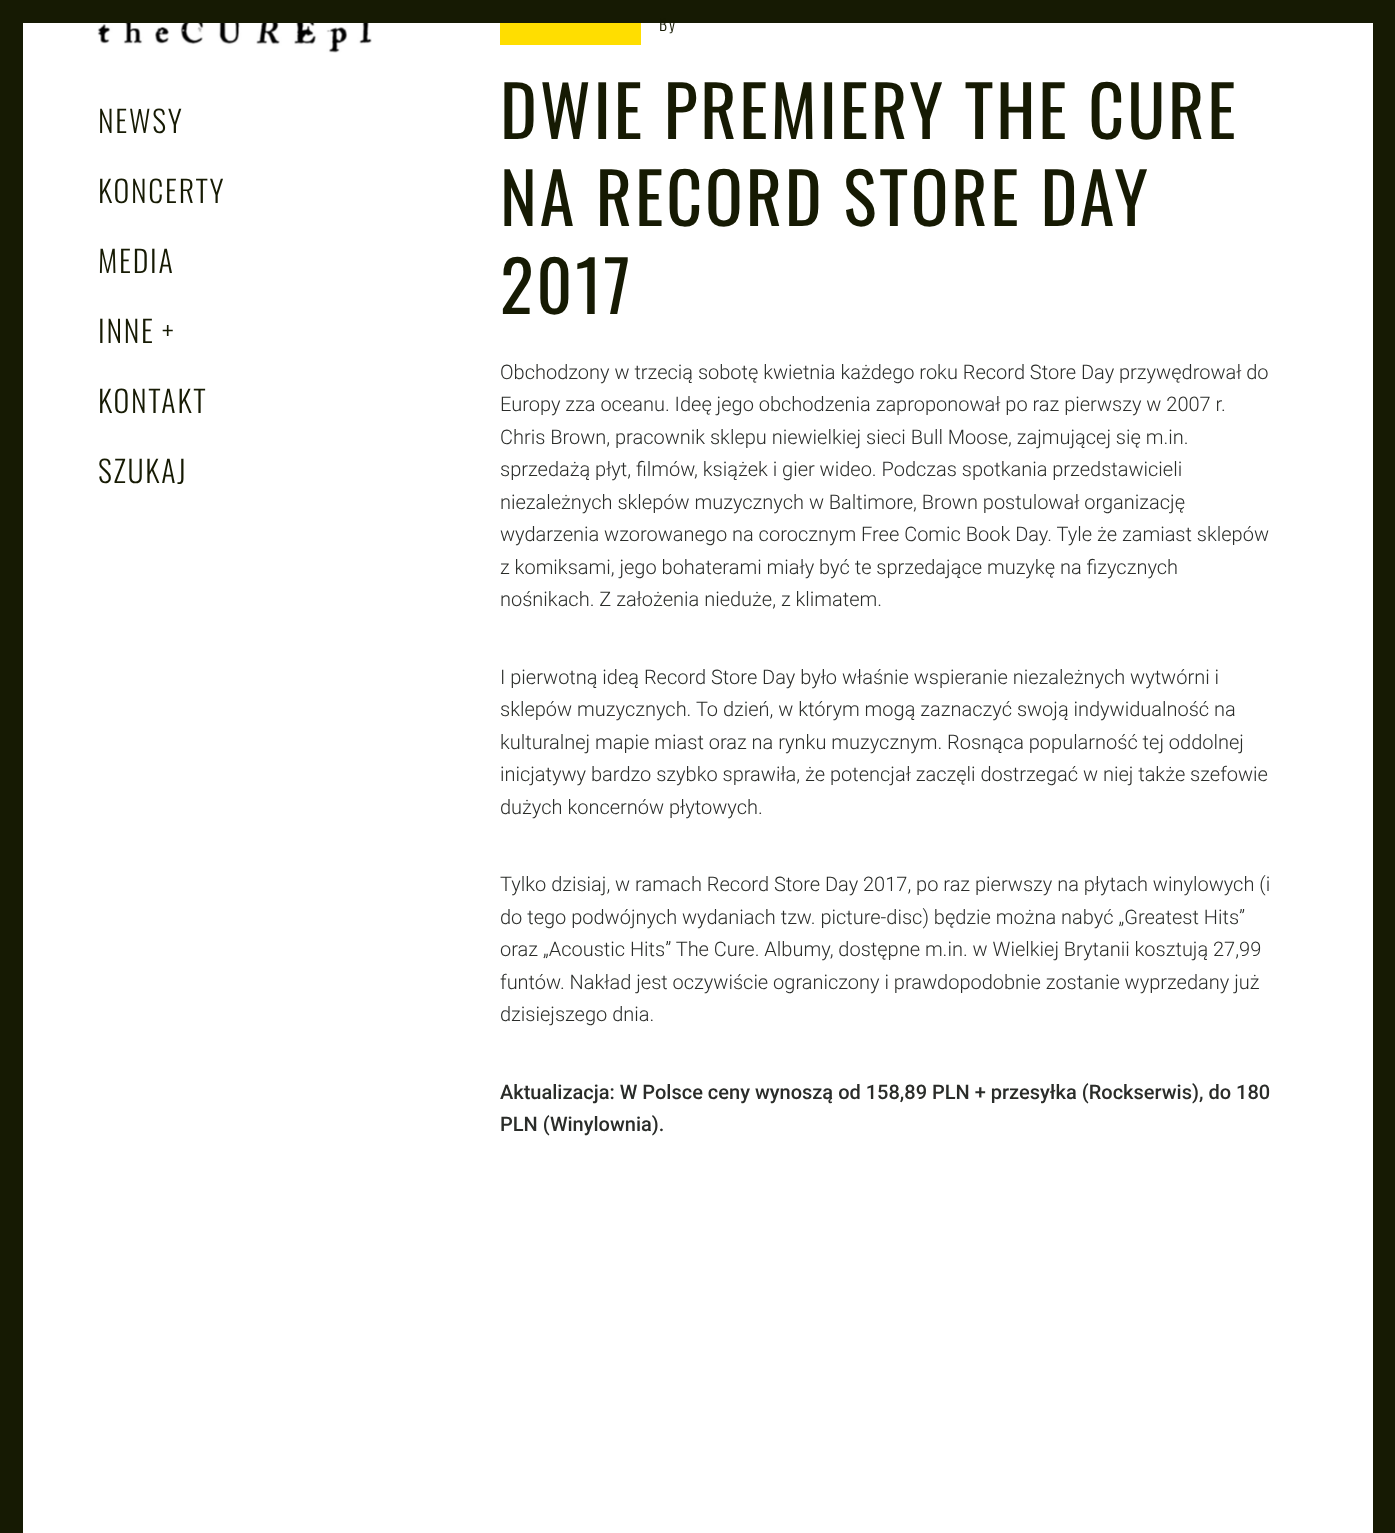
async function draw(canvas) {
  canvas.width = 1395
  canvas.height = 1533
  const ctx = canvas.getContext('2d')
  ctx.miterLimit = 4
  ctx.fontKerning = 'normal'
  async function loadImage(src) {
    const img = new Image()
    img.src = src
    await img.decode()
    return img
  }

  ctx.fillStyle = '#fff'
  ctx.fillRect(0, 0, 1395, 1533)
  ctx.fillStyle = '#161a03'
  ctx.fillRect(1373, 23, 22, 1510)
  ctx.fillRect(0, 23, 23, 1510)
  ctx.fillRect(0, 0, 1395, 23)
  ctx.drawImage(await loadImage('image0.png'), 97, 23, 275, 30)
  ctx.letterSpacing = '1.75px'
  ctx.font = '300 30px Oswald'
  ctx.fillText('NEWSY', 98, 133)
  ctx.fillText('KONCERTY', 98, 203)
  ctx.fillText('MEDIA', 98, 273)
  ctx.fillText('INNE', 98, 343)
  ctx.fillText('+', 162, 343)
  ctx.fillText('KONTAKT', 98, 413)
  ctx.fillText('SZUKAJ', 98, 483)
  ctx.fillStyle = '#ffde00'
  ctx.fillRect(500, 23, 141, 22)
  ctx.letterSpacing = '2px'
  ctx.font = '300 16px Oswald'
  ctx.fillStyle = '#161a03'
  ctx.fillText('By', 659, 31)
  ctx.letterSpacing = '2.8px'
  ctx.font = '70px Oswald'
  ctx.fillText('DWIE PREMIERY THE CURE', 500, 139)
  ctx.fillText('NA RECORD STORE DAY', 500, 226)
  ctx.fillText('2017', 500, 314)
  ctx.letterSpacing = '0px'
  ctx.font = '300 20px Roboto'
  ctx.fillStyle = '#2a2c29'
  ctx.fillText('Obchodzony w trzecią sobotę kwietnia każdego roku Record Store Day przywędrował do', 500, 379)
  ctx.fillText('Europy zza oceanu. Ideę jego obchodzenia zaproponował po raz pierwszy w 2007 r.', 500, 411)
  ctx.fillText('Chris Brown, pracownik sklepu niewielkiej sieci Bull Moose, zajmującej się m.in.', 500, 444)
  ctx.fillText('sprzedażą płyt, filmów, książek i gier wideo. Podczas spotkania przedstawicieli', 500, 476)
  ctx.fillText('niezależnych sklepów muzycznych w Baltimore, Brown postulował organizację', 500, 509)
  ctx.fillText('wydarzenia wzorowanego na corocznym Free Comic Book Day. Tyle że zamiast sklepów', 500, 541)
  ctx.fillText('z komiksami, jego bohaterami miały być te sprzedające muzykę na fizycznych', 500, 574)
  ctx.fillText('nośnikach. Z założenia nieduże, z klimatem.', 500, 606)
  ctx.fillText('I pierwotną ideą Record Store Day było właśnie wspieranie niezależnych wytwórni i', 500, 684)
  ctx.fillText('sklepów muzycznych. To dzień, w którym mogą zaznaczyć swoją indywidualność na', 500, 716)
  ctx.fillText('kulturalnej mapie miast oraz na rynku muzycznym. Rosnąca popularność tej oddolnej', 500, 749)
  ctx.fillText('inicjatywy bardzo szybko sprawiła, że potencjał zaczęli dostrzegać w niej także szefowie', 500, 781)
  ctx.fillText('dużych koncernów płytowych.', 500, 814)
  ctx.fillText('Tylko dzisiaj, w ramach Record Store Day 2017, po raz pierwszy na płytach winylowych (i', 500, 891)
  ctx.fillText('do tego podwójnych wydaniach tzw. picture-disc) będzie można nabyć „Greatest Hits”', 500, 924)
  ctx.fillText('oraz „Acoustic Hits” The Cure. Albumy, dostępne m.in. w Wielkiej Brytanii kosztują 27,99', 500, 956)
  ctx.fillText('funtów. Nakład jest oczywiście ograniczony i prawdopodobnie zostanie wyprzedany już', 500, 989)
  ctx.fillText('dzisiejszego dnia.', 500, 1021)
  ctx.font = '500 20px Roboto'
  ctx.fillText('Aktualizacja: W Polsce ceny wynoszą od 158,89 PLN + przesyłka (Rockserwis), do 180', 500, 1099)
  ctx.fillText('PLN (Winylownia).', 500, 1131)
}

draw(document.querySelector('canvas'))
